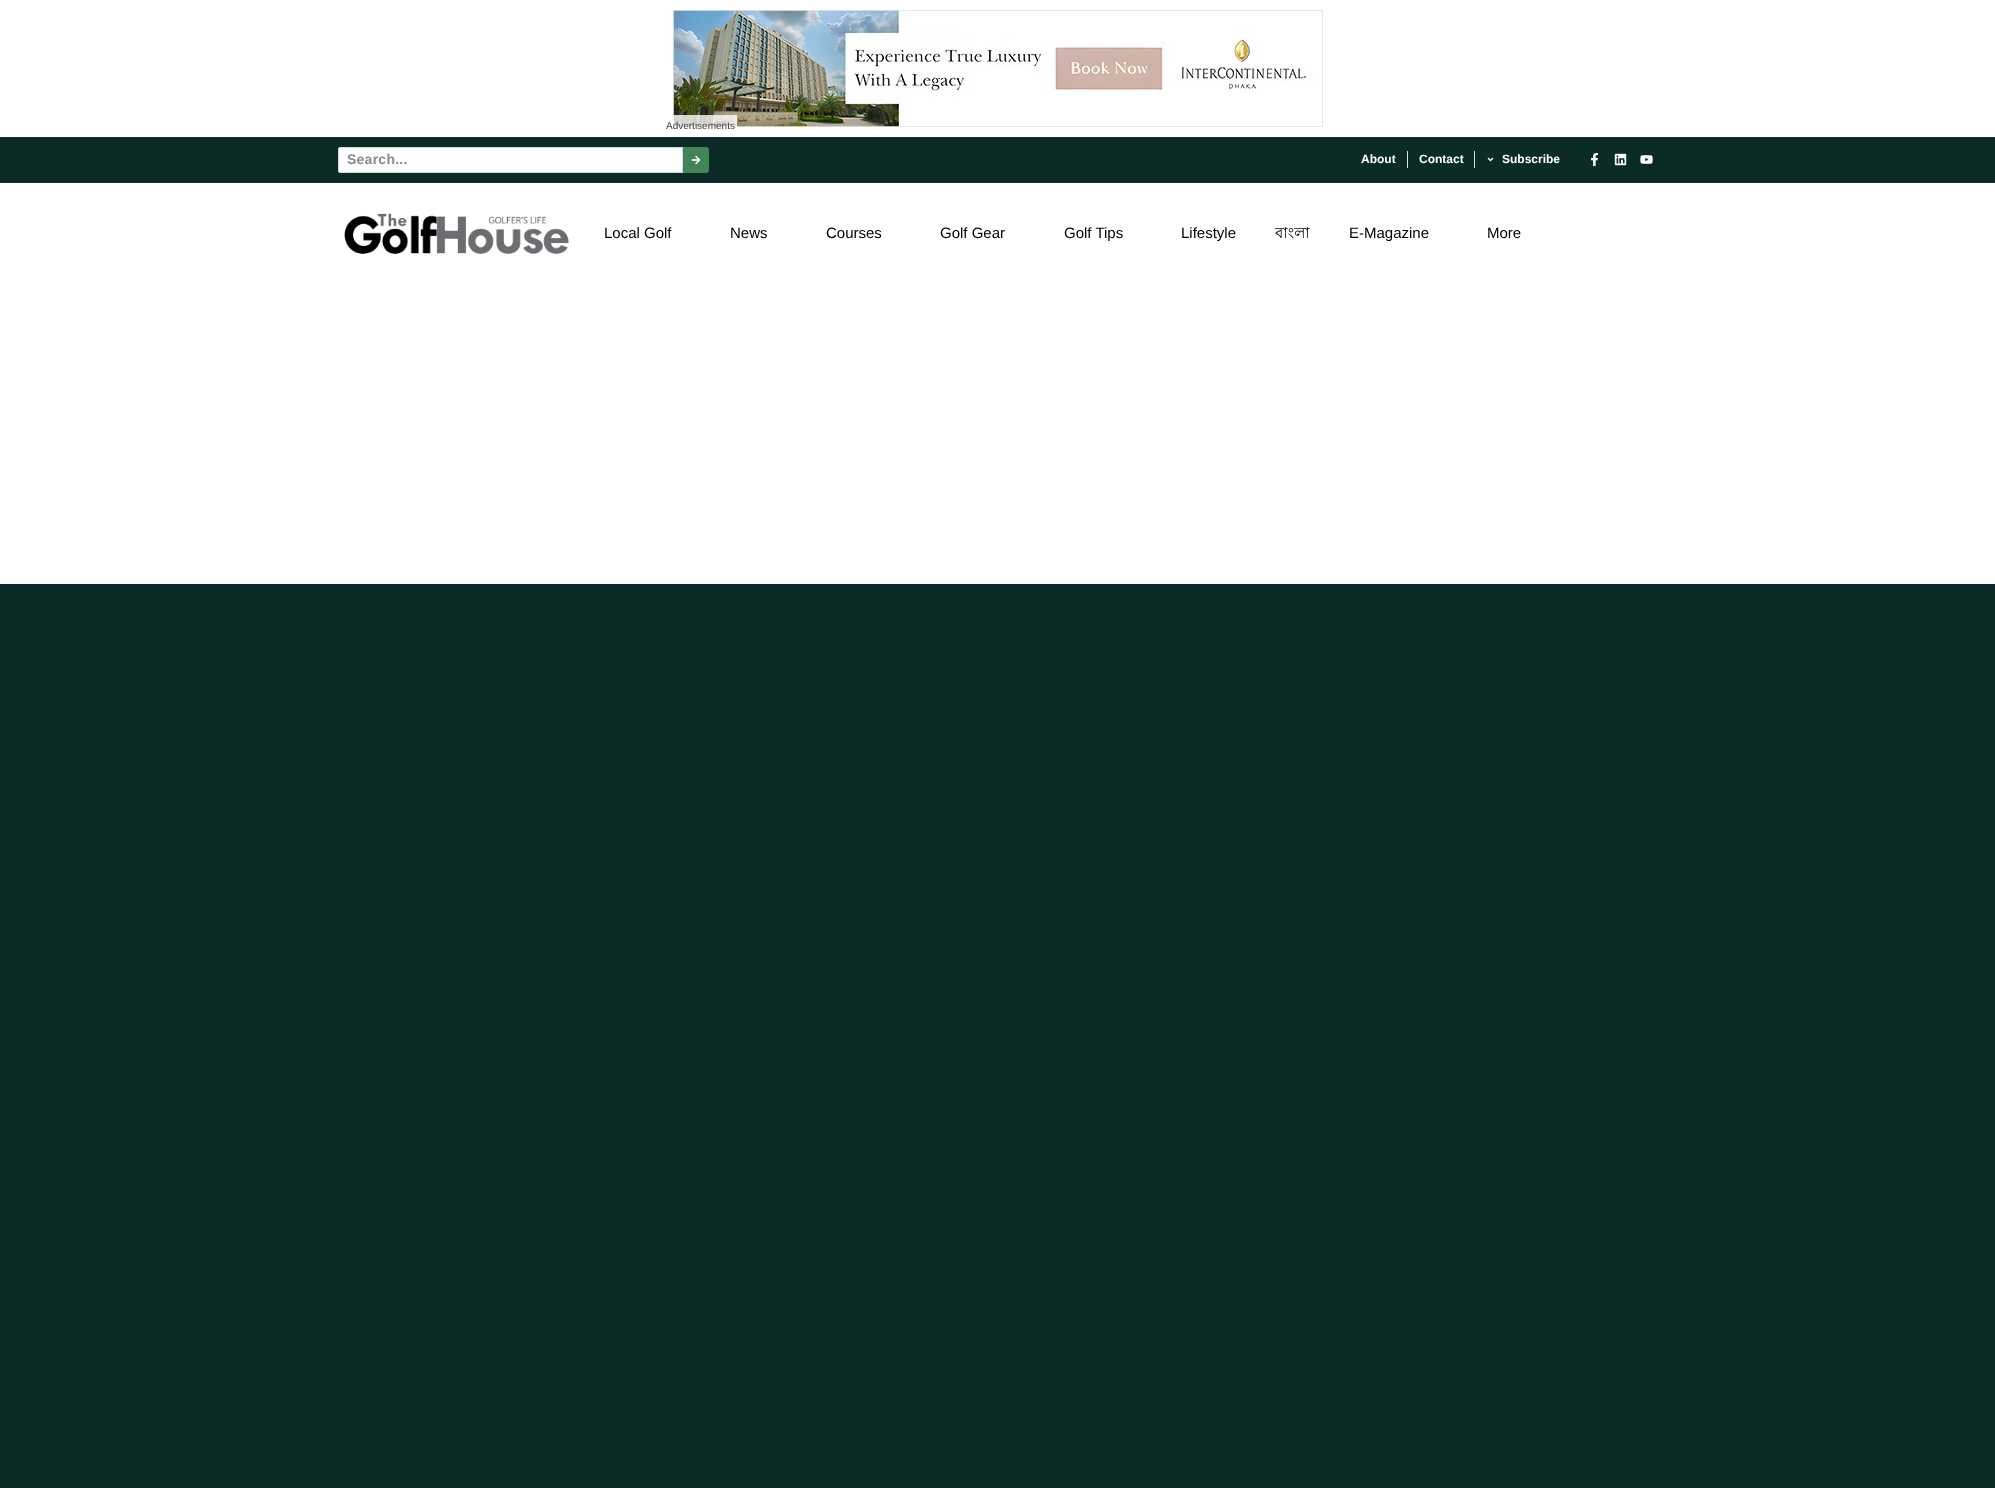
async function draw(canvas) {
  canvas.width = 1995
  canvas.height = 1488
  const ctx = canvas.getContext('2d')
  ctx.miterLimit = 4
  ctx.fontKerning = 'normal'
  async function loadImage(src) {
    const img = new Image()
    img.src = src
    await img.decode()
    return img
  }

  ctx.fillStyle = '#fff'
  ctx.fillRect(0, 0, 1995, 1488)
  ctx.drawImage(await loadImage('image0.png'), 673, 10, 650, 117)
  ctx.fillStyle = '#ffffffcc'
  ctx.fillRect(673, 115, 64, 12)
  ctx.font = '10px Liberation Sans'
  ctx.fillStyle = '#3d3d3d'
  ctx.fillText('Advertisements', 666, 129)
  ctx.fillStyle = '#0b2b26'
  ctx.fillRect(0, 137, 1995, 46)
  ctx.fillStyle = '#fff'
  ctx.beginPath()
  ctx.roundRect(338, 147, 345, 26, [3, 0, 0, 3])
  ctx.fill()
  ctx.fillStyle = '#d3d9e1'
  ctx.beginPath()
  ctx.moveTo(341, 147)
  ctx.bezierCurveTo(339, 147, 338, 148, 338, 150)
  ctx.lineTo(338, 170)
  ctx.bezierCurveTo(338, 172, 339, 173, 341, 173)
  ctx.lineTo(683, 173)
  ctx.lineTo(683, 147)
  ctx.closePath()
  ctx.moveTo(339, 148)
  ctx.lineTo(339, 172)
  ctx.lineTo(682, 172)
  ctx.lineTo(682, 148)
  ctx.closePath()
  ctx.fill('evenodd')
  ctx.letterSpacing = '0.25px'
  ctx.font = 'bold 14px Liberation Sans'
  ctx.fillStyle = '#8b8b8b'
  ctx.fillText('Search...', 347, 164)
  ctx.fillStyle = '#438358'
  ctx.beginPath()
  ctx.roundRect(683, 147, 26, 26, [0, 3, 3, 0])
  ctx.fill()
  ctx.drawImage(await loadImage('image1.png'), 691, 155, 10, 10)
  ctx.letterSpacing = '0px'
  ctx.font = 'bold 12px Liberation Sans'
  ctx.fillStyle = '#fff'
  ctx.fillText('About', 1361, 163)
  ctx.fillStyle = '#ddd'
  ctx.fillRect(1407, 151, 1, 17)
  ctx.fillStyle = '#fff'
  ctx.fillText('Contact', 1419, 163)
  ctx.fillStyle = '#ddd'
  ctx.fillRect(1474, 151, 1, 17)
  ctx.drawImage(await loadImage('image2.png'), 1487, 157, 7, 5)
  ctx.fillStyle = '#fff'
  ctx.fillText('Subscribe', 1502, 163)
  ctx.drawImage(await loadImage('image3.png'), 1591, 153, 7, 13)
  ctx.drawImage(await loadImage('image4.png'), 1614, 153, 13, 13)
  ctx.drawImage(await loadImage('image5.png'), 1640, 155, 13, 9)
  ctx.drawImage(await loadImage('image6.png'), 344, 213, 225, 41)
  ctx.font = '15px Liberation Sans'
  ctx.fillStyle = '#000'
  ctx.fillText('Local Golf', 604, 238)
  ctx.fillText('News', 730, 238)
  ctx.fillText('Courses', 826, 238)
  ctx.fillText('Golf Gear', 940, 238)
  ctx.fillText('Golf Tips', 1064, 238)
  ctx.fillText('Lifestyle', 1181, 238)
  ctx.font = '15px Lohit Bengali'
  ctx.fillText('বাংলা', 1275, 238)
  ctx.font = '15px Liberation Sans'
  ctx.fillText('E-Magazine', 1349, 238)
  ctx.fillText('More', 1487, 238)
  ctx.fillStyle = '#0b2b26'
  ctx.fillRect(0, 584, 1995, 904)
}

draw(document.querySelector('canvas'))
